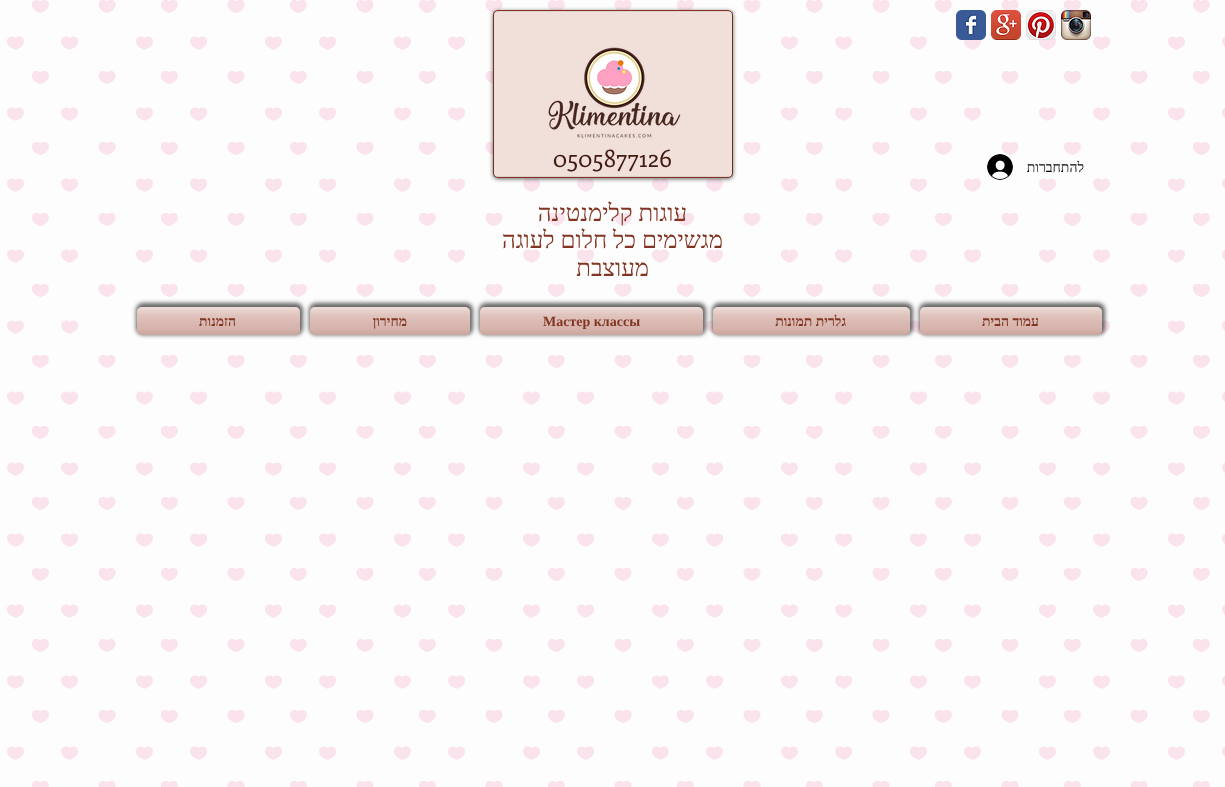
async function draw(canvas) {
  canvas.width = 1225
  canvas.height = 787
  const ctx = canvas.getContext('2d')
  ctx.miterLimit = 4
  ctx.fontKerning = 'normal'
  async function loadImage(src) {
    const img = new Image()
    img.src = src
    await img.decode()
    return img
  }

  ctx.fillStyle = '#fefdfd'
  ctx.fillRect(0, 0, 1225, 787)
  ctx.drawImage(await loadImage('image0.png'), 7, 0, 1218, 787)
  ctx.drawImage(await loadImage('image1.png'), 1061, 10, 30, 30)
  ctx.drawImage(await loadImage('image2.png'), 1026, 10, 30, 30)
  ctx.drawImage(await loadImage('image3.png'), 991, 10, 30, 30)
  ctx.drawImage(await loadImage('image4.png'), 956, 10, 30, 30)
  ctx.fillStyle = '#00000099'
  ctx.filter = 'blur(2px)'
  ctx.beginPath()
  ctx.roundRect(493, 11, 240, 168, 5)
  ctx.fill()
  ctx.filter = 'none'
  ctx.fillStyle = '#f1dfd9'
  ctx.beginPath()
  ctx.roundRect(493.5, 10.5, 239, 167, 4.5)
  ctx.fill()
  ctx.strokeStyle = '#823522'
  ctx.stroke()
  ctx.drawImage(await loadImage('image5.png'), 493, 11, 240, 166)
  ctx.direction = 'rtl'
  ctx.font = '14px Liberation Serif'
  ctx.fillStyle = '#000'
  ctx.fillText('להתחברות', 1084, 172)
  ctx.drawImage(await loadImage('image6.png'), 987, 154, 26, 26)
  ctx.direction = 'ltr'
  ctx.font = '24px Enriqueta'
  ctx.fillStyle = '#411a11'
  ctx.fillText('0505877126', 553, 167)
  ctx.direction = 'rtl'
  ctx.font = '24px Liberation Serif'
  ctx.fillStyle = '#823522'
  ctx.fillText('עוגות קלימנטינה', 687, 221)
  ctx.fillText('מגשימים כל חלום לעוגה', 723, 248)
  ctx.fillText('מעוצבת', 649, 276)
  ctx.fillStyle = '#00000099'
  ctx.filter = 'blur(2px)'
  ctx.beginPath()
  ctx.roundRect(919, 303, 186, 32, 7)
  ctx.fill()
  ctx.filter = 'none'
  ctx.fillStyle = '#ebbcb1'
  ctx.beginPath()
  ctx.roundRect(920, 307, 182, 28, 5)
  ctx.fill()
  ctx.drawImage(await loadImage('image7.png'), 920, 307, 182, 28)
  ctx.drawImage(await loadImage('image8.png'), 920, 307, 182, 28)
  ctx.font = 'bold 14px Liberation Serif'
  ctx.fillStyle = '#823522'
  ctx.fillText('עמוד הבית', 1039, 326)
  ctx.fillStyle = '#00000099'
  ctx.filter = 'blur(2px)'
  ctx.beginPath()
  ctx.roundRect(712, 303, 201, 32, 7)
  ctx.fill()
  ctx.filter = 'none'
  ctx.fillStyle = '#ebbcb1'
  ctx.beginPath()
  ctx.roundRect(713, 307, 197, 28, 5)
  ctx.fill()
  ctx.drawImage(await loadImage('image9.png'), 713, 307, 197, 28)
  ctx.drawImage(await loadImage('image10.png'), 713, 307, 197, 28)
  ctx.fillStyle = '#823522'
  ctx.fillText('גלרית תמונות', 846, 326)
  ctx.fillStyle = '#00000099'
  ctx.filter = 'blur(2px)'
  ctx.beginPath()
  ctx.roundRect(479, 303, 227, 32, 7)
  ctx.fill()
  ctx.filter = 'none'
  ctx.fillStyle = '#ebbcb1'
  ctx.beginPath()
  ctx.roundRect(480, 307, 223, 28, 5)
  ctx.fill()
  ctx.drawImage(await loadImage('image11.png'), 480, 307, 223, 28)
  ctx.drawImage(await loadImage('image12.png'), 480, 307, 223, 28)
  ctx.direction = 'ltr'
  ctx.fillStyle = '#823522'
  ctx.fillText('Мастер классы', 543, 326)
  ctx.fillStyle = '#00000099'
  ctx.filter = 'blur(2px)'
  ctx.beginPath()
  ctx.roundRect(309, 303, 164, 32, 7)
  ctx.fill()
  ctx.filter = 'none'
  ctx.fillStyle = '#ebbcb1'
  ctx.beginPath()
  ctx.roundRect(310, 307, 160, 28, 5)
  ctx.fill()
  ctx.drawImage(await loadImage('image13.png'), 310, 307, 160, 28)
  ctx.drawImage(await loadImage('image14.png'), 310, 307, 160, 28)
  ctx.direction = 'rtl'
  ctx.fillStyle = '#823522'
  ctx.fillText('מחירון', 407, 326)
  ctx.fillStyle = '#00000099'
  ctx.filter = 'blur(2px)'
  ctx.beginPath()
  ctx.roundRect(136, 303, 167, 32, 7)
  ctx.fill()
  ctx.filter = 'none'
  ctx.fillStyle = '#ebbcb1'
  ctx.beginPath()
  ctx.roundRect(137, 307, 163, 28, 5)
  ctx.fill()
  ctx.drawImage(await loadImage('image15.png'), 137, 307, 163, 28)
  ctx.drawImage(await loadImage('image16.png'), 137, 307, 163, 28)
  ctx.fillStyle = '#823522'
  ctx.fillText('הזמנות', 236, 326)
}

draw(document.querySelector('canvas'))
